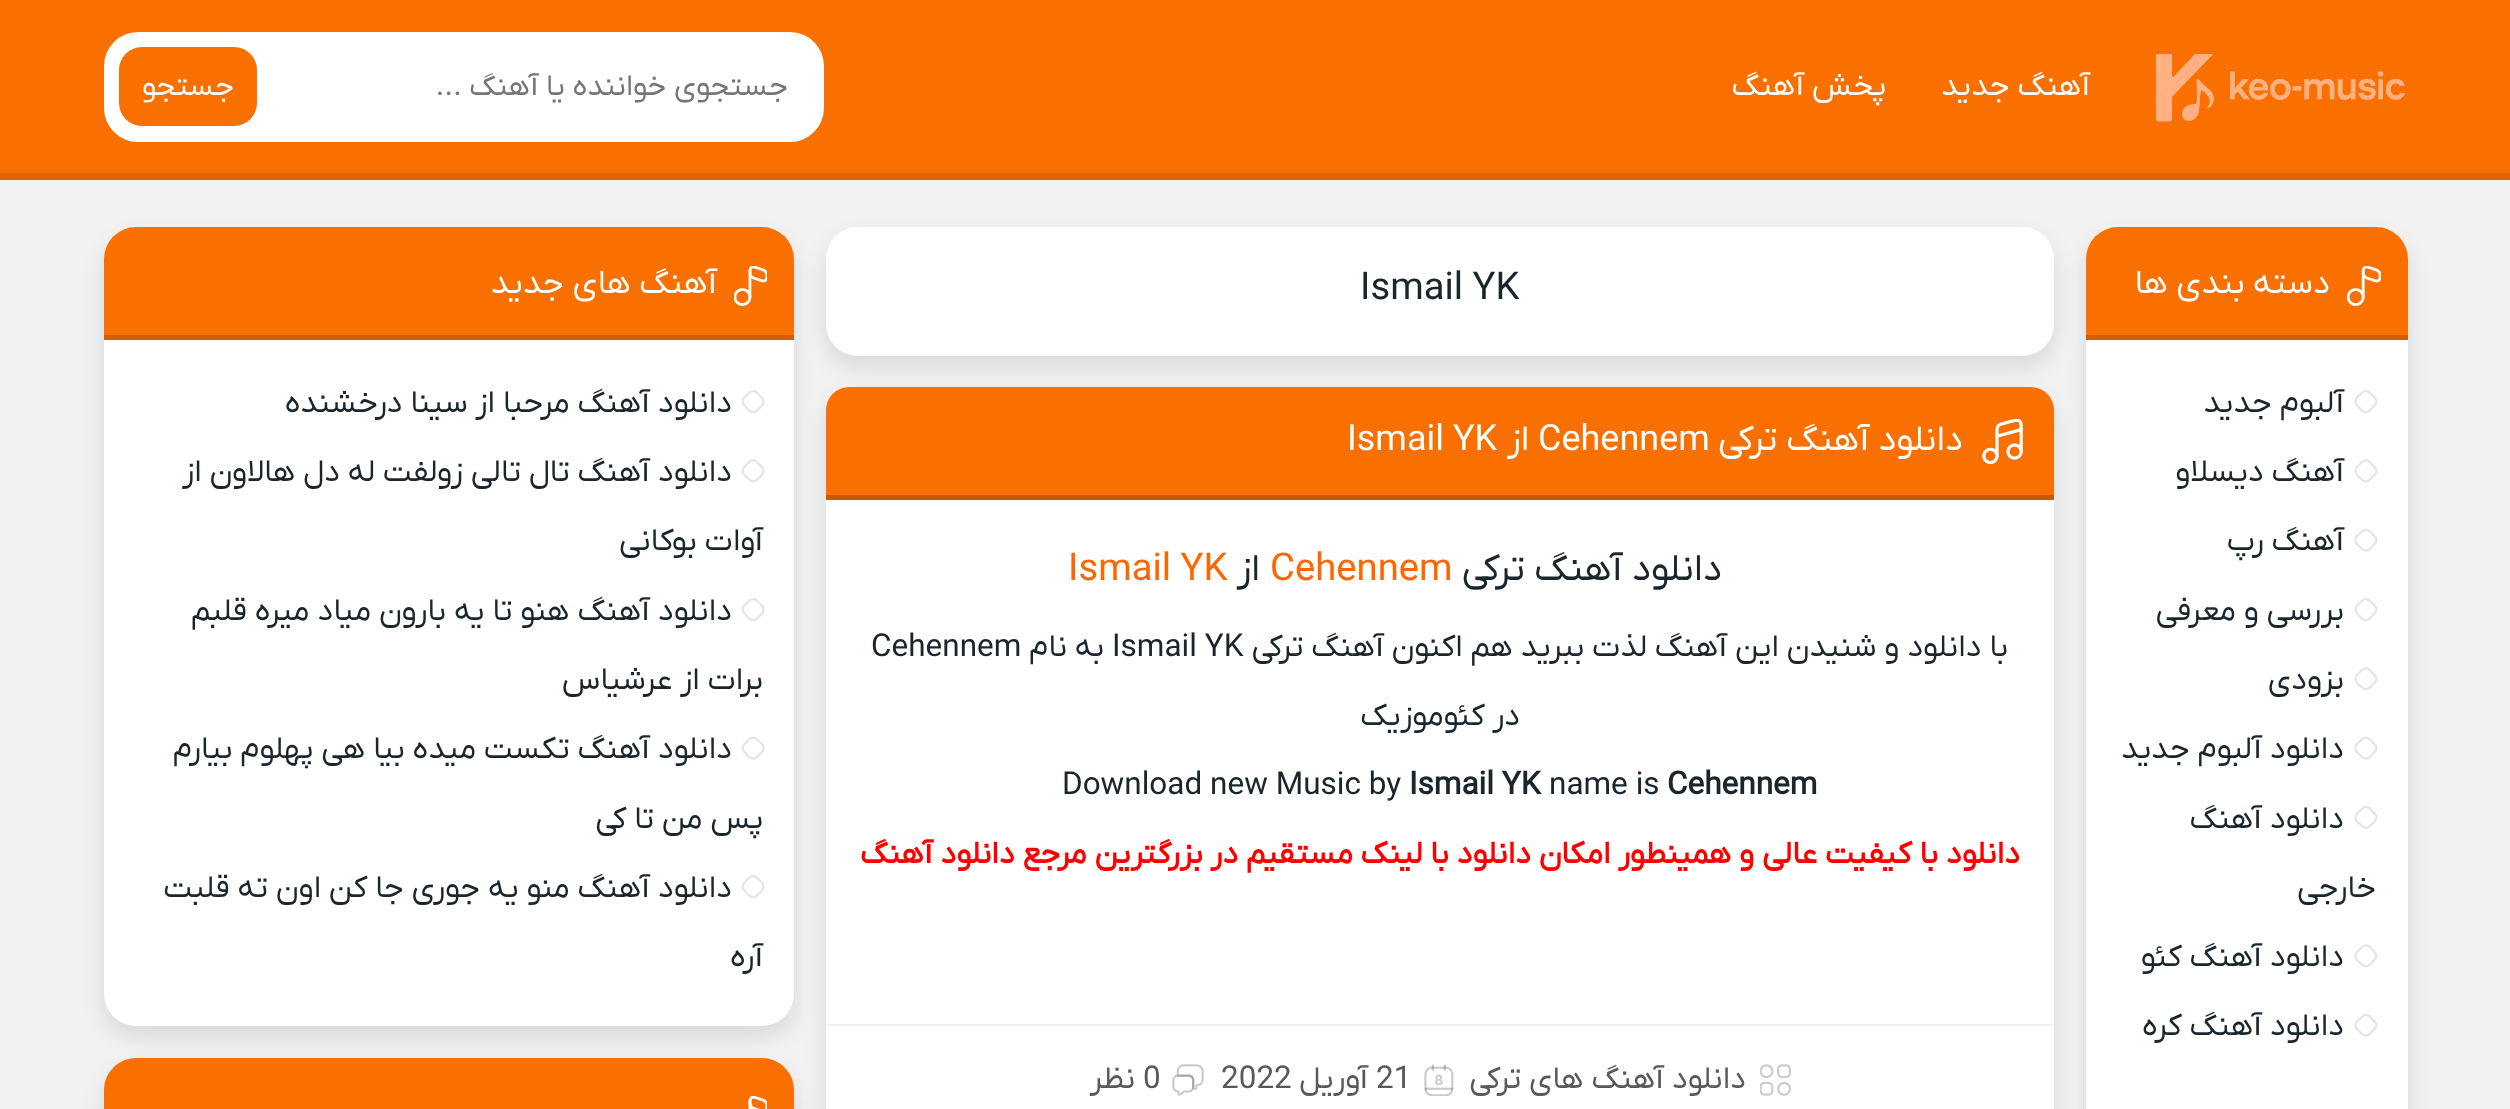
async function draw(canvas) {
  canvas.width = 2510
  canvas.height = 1109
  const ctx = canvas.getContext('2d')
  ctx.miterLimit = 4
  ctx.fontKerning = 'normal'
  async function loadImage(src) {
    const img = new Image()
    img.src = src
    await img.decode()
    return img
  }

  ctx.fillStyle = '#f2f2f2'
  ctx.fillRect(0, 0, 2510, 1109)
  ctx.fillStyle = '#f97000'
  ctx.fillRect(0, 0, 2510, 173)
  ctx.fillStyle = '#e06500'
  ctx.fillRect(0, 173, 2510, 7)
  ctx.drawImage(await loadImage('image0.png'), 2155, 54, 250, 68)
  ctx.direction = 'rtl'
  ctx.font = '31.5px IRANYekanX'
  ctx.fillStyle = '#fff'
  ctx.fillText('آهنگ جدید', 2090, 95)
  ctx.fillText('پخش آهنگ', 1886, 95)
  ctx.beginPath()
  ctx.roundRect(104, 32, 720, 110, 34)
  ctx.fill()
  ctx.font = '30px IRANYekanX'
  ctx.fillStyle = '#757575'
  ctx.fillText('جستجوی خواننده یا آهنگ ...', 788, 95)
  ctx.fillStyle = '#f97000'
  ctx.beginPath()
  ctx.roundRect(119, 47, 138, 79, 23)
  ctx.fill()
  ctx.fillStyle = '#fff'
  ctx.fillText('جستجو', 234, 95)
  ctx.fillStyle = '#0000001a'
  ctx.filter = 'blur(11px)'
  ctx.beginPath()
  ctx.roundRect(826, 239, 1228, 128, 32)
  ctx.fill()
  ctx.filter = 'none'
  ctx.fillStyle = '#fff'
  ctx.beginPath()
  ctx.roundRect(826, 227, 1228, 129, 32)
  ctx.fill()
  ctx.fillStyle = '#0000001a'
  ctx.filter = 'blur(11px)'
  ctx.beginPath()
  ctx.roundRect(826, 398, 1228, 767, 23)
  ctx.fill()
  ctx.filter = 'none'
  ctx.fillStyle = '#fff'
  ctx.beginPath()
  ctx.roundRect(826, 387, 1228, 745, 23)
  ctx.fill()
  ctx.fillStyle = '#f97000'
  ctx.beginPath()
  ctx.roundRect(826, 387, 1228, 113, [23, 23, 0, 0])
  ctx.fill()
  ctx.fillStyle = '#c75a00'
  ctx.fillRect(826, 495, 1228, 5)
  ctx.fillStyle = '#f2f2f2'
  ctx.fillRect(826, 1024, 1228, 2)
  ctx.fillStyle = '#0000001a'
  ctx.filter = 'blur(11px)'
  ctx.beginPath()
  ctx.roundRect(2086, 239, 322, 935, 32)
  ctx.fill()
  ctx.filter = 'none'
  ctx.fillStyle = '#fff'
  ctx.beginPath()
  ctx.roundRect(2086, 227, 322, 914, 32)
  ctx.fill()
  ctx.fillStyle = '#f97000'
  ctx.beginPath()
  ctx.roundRect(2086, 227, 322, 113, [32, 32, 0, 0])
  ctx.fill()
  ctx.fillStyle = '#d45f00'
  ctx.fillRect(2086, 335, 322, 5)
  ctx.drawImage(await loadImage('image1.png'), 2347, 266, 34, 40)
  ctx.font = '33.75px IRANYekanX'
  ctx.fillStyle = '#fff'
  ctx.fillText('دسته بندی ها', 2330, 293)
  ctx.beginPath()
  ctx.moveTo(2370, 393)
  ctx.lineTo(2374.5, 397.5)
  ctx.bezierCurveTo(2377, 400, 2377, 403.5, 2374.5, 405.5)
  ctx.lineTo(2370, 410.5)
  ctx.bezierCurveTo(2367.5, 412.5, 2364, 412.5, 2362, 410.5)
  ctx.lineTo(2357, 405.5)
  ctx.bezierCurveTo(2355, 403.5, 2355, 400, 2357, 397.5)
  ctx.lineTo(2362, 393)
  ctx.bezierCurveTo(2364, 390.5, 2367.5, 390.5, 2370, 393)
  ctx.closePath()
  ctx.strokeStyle = '#e5e5e5'
  ctx.lineWidth = 2.3
  ctx.stroke()
  ctx.font = '31.5px IRANYekanX'
  ctx.fillStyle = '#1b262c'
  ctx.fillText('آلبوم جدید', 2344, 412)
  ctx.beginPath()
  ctx.moveTo(2370, 462)
  ctx.lineTo(2374.5, 467)
  ctx.bezierCurveTo(2377, 469, 2377, 472.5, 2374.5, 475)
  ctx.lineTo(2370, 479.5)
  ctx.bezierCurveTo(2367.5, 482, 2364, 482, 2362, 479.5)
  ctx.lineTo(2357, 475)
  ctx.bezierCurveTo(2355, 472.5, 2355, 469, 2357, 467)
  ctx.lineTo(2362, 462)
  ctx.bezierCurveTo(2364, 460, 2367.5, 460, 2370, 462)
  ctx.closePath()
  ctx.stroke()
  ctx.fillText('آهنگ دیسلاو', 2344, 481)
  ctx.beginPath()
  ctx.moveTo(2370, 531.5)
  ctx.lineTo(2374.5, 536)
  ctx.bezierCurveTo(2377, 538.5, 2377, 542, 2374.5, 544)
  ctx.lineTo(2370, 549)
  ctx.bezierCurveTo(2367.5, 551, 2364, 551, 2362, 549)
  ctx.lineTo(2357, 544)
  ctx.bezierCurveTo(2355, 542, 2355, 538.5, 2357, 536)
  ctx.lineTo(2362, 531.5)
  ctx.bezierCurveTo(2364, 529.5, 2367.5, 529.5, 2370, 531.5)
  ctx.closePath()
  ctx.stroke()
  ctx.fillText('آهنگ رپ', 2344, 550)
  ctx.beginPath()
  ctx.moveTo(2370, 601)
  ctx.lineTo(2374.5, 605.5)
  ctx.bezierCurveTo(2377, 607.5, 2377, 611.5, 2374.5, 613.5)
  ctx.lineTo(2370, 618.5)
  ctx.bezierCurveTo(2367.5, 620.5, 2364, 620.5, 2362, 618.5)
  ctx.lineTo(2357, 613.5)
  ctx.bezierCurveTo(2355, 611.5, 2355, 607.5, 2357, 605.5)
  ctx.lineTo(2362, 601)
  ctx.bezierCurveTo(2364, 598.5, 2367.5, 598.5, 2370, 601)
  ctx.closePath()
  ctx.stroke()
  ctx.fillText('بررسی و معرفی', 2344, 620)
  ctx.beginPath()
  ctx.moveTo(2370, 670)
  ctx.lineTo(2374.5, 675)
  ctx.bezierCurveTo(2377, 677, 2377, 680.5, 2374.5, 683)
  ctx.lineTo(2370, 687.5)
  ctx.bezierCurveTo(2367.5, 689.5, 2364, 689.5, 2362, 687.5)
  ctx.lineTo(2357, 683)
  ctx.bezierCurveTo(2355, 680.5, 2355, 677, 2357, 675)
  ctx.lineTo(2362, 670)
  ctx.bezierCurveTo(2364, 668, 2367.5, 668, 2370, 670)
  ctx.closePath()
  ctx.stroke()
  ctx.fillText('بزودی', 2344, 689)
  ctx.beginPath()
  ctx.moveTo(2370, 739.5)
  ctx.lineTo(2374.5, 744)
  ctx.bezierCurveTo(2377, 746.5, 2377, 750, 2374.5, 752)
  ctx.lineTo(2370, 757)
  ctx.bezierCurveTo(2367.5, 759, 2364, 759, 2362, 757)
  ctx.lineTo(2357, 752)
  ctx.bezierCurveTo(2355, 750, 2355, 746.5, 2357, 744)
  ctx.lineTo(2362, 739.5)
  ctx.bezierCurveTo(2364, 737, 2367.5, 737, 2370, 739.5)
  ctx.closePath()
  ctx.stroke()
  ctx.fillText('دانلود آلبوم جدید', 2344, 758)
  ctx.beginPath()
  ctx.moveTo(2370, 808.5)
  ctx.lineTo(2374.5, 813.5)
  ctx.bezierCurveTo(2377, 815.5, 2377, 819, 2374.5, 821.5)
  ctx.lineTo(2370, 826)
  ctx.bezierCurveTo(2367.5, 828.5, 2364, 828.5, 2362, 826)
  ctx.lineTo(2357, 821.5)
  ctx.bezierCurveTo(2355, 819, 2355, 815.5, 2357, 813.5)
  ctx.lineTo(2362, 808.5)
  ctx.bezierCurveTo(2364, 806.5, 2367.5, 806.5, 2370, 808.5)
  ctx.closePath()
  ctx.stroke()
  ctx.fillText('دانلود آهنگ', 2344, 828)
  ctx.fillText('خارجی', 2376, 897)
  ctx.beginPath()
  ctx.moveTo(2370, 947)
  ctx.lineTo(2374.5, 952)
  ctx.bezierCurveTo(2377, 954, 2377, 957.5, 2374.5, 960)
  ctx.lineTo(2370, 964.5)
  ctx.bezierCurveTo(2367.5, 967, 2364, 967, 2362, 964.5)
  ctx.lineTo(2357, 960)
  ctx.bezierCurveTo(2355, 957.5, 2355, 954, 2357, 952)
  ctx.lineTo(2362, 947)
  ctx.bezierCurveTo(2364, 945, 2367.5, 945, 2370, 947)
  ctx.closePath()
  ctx.stroke()
  ctx.fillText('دانلود آهنگ کئو', 2344, 966)
  ctx.beginPath()
  ctx.moveTo(2370, 1016.5)
  ctx.lineTo(2374.5, 1021.5)
  ctx.bezierCurveTo(2377, 1023.5, 2377, 1027, 2374.5, 1029)
  ctx.lineTo(2370, 1034)
  ctx.bezierCurveTo(2367.5, 1036, 2364, 1036, 2362, 1034)
  ctx.lineTo(2357, 1029)
  ctx.bezierCurveTo(2355, 1027, 2355, 1023.5, 2357, 1021.5)
  ctx.lineTo(2362, 1016.5)
  ctx.bezierCurveTo(2364, 1014.5, 2367.5, 1014.5, 2370, 1016.5)
  ctx.closePath()
  ctx.stroke()
  ctx.fillText('دانلود آهنگ کره', 2344, 1035)
  ctx.direction = 'ltr'
  ctx.font = '38.25px IRANYekanX'
  ctx.fillText('Ismail YK', 1360, 299)
  ctx.drawImage(await loadImage('image2.png'), 1982, 419, 41, 45)
  ctx.direction = 'rtl'
  ctx.font = '36px IRANYekanX'
  ctx.fillStyle = '#fff'
  ctx.fillText('دانلود آهنگ ترکی', 1963, 450)
  ctx.direction = 'ltr'
  ctx.fillText('Cehennem', 1538, 450)
  ctx.direction = 'rtl'
  ctx.fillText('از', 1529, 450)
  ctx.direction = 'ltr'
  ctx.fillText('Ismail YK', 1347, 450)
  ctx.direction = 'rtl'
  ctx.font = '38.25px IRANYekanX'
  ctx.fillStyle = '#1b262c'
  ctx.fillText('دانلود آهنگ ترکی', 1722, 580)
  ctx.direction = 'ltr'
  ctx.fillStyle = '#f60'
  ctx.fillText('Cehennem', 1270, 580)
  ctx.direction = 'rtl'
  ctx.fillStyle = '#1b262c'
  ctx.fillText('از', 1260, 580)
  ctx.direction = 'ltr'
  ctx.fillStyle = '#f60'
  ctx.fillText('Ismail YK', 1068, 580)
  ctx.direction = 'rtl'
  ctx.font = '31.5px IRANYekanX'
  ctx.fillStyle = '#1b262c'
  ctx.fillText('با دانلود و شنیدن این آهنگ لذت ببرید هم اکنون آهنگ ترکی', 2008, 656)
  ctx.direction = 'ltr'
  ctx.fillText('Ismail YK', 1112, 656)
  ctx.direction = 'rtl'
  ctx.fillText('به نام', 1104, 656)
  ctx.direction = 'ltr'
  ctx.fillText('Cehennem', 871, 656)
  ctx.direction = 'rtl'
  ctx.fillText('در کئوموزیک', 1520, 725)
  ctx.direction = 'ltr'
  ctx.font = 'bold 31.5px IRANYekanX'
  ctx.fillText('Cehennem', 1667, 794)
  ctx.font = '31.5px IRANYekanX'
  ctx.fillText('name is', 1549, 794)
  ctx.font = 'bold 31.5px IRANYekanX'
  ctx.fillText('Ismail YK', 1409, 794)
  ctx.font = '31.5px IRANYekanX'
  ctx.fillText('Download new Music by', 1062, 794)
  ctx.direction = 'rtl'
  ctx.font = 'bold 31.5px IRANYekanX'
  ctx.fillStyle = '#f00'
  ctx.fillText('دانلود با کیفیت عالی و همینطور امکان دانلود با لینک مستقیم در بزرگترین مرجع دانلود آهنگ', 2020, 863)
  ctx.drawImage(await loadImage('image3.png'), 1760, 1064, 31, 32)
  ctx.font = '31.5px IRANYekanX'
  ctx.fillStyle = '#595959'
  ctx.fillText('دانلود آهنگ های ترکی', 1746, 1088)
  ctx.drawImage(await loadImage('image4.png'), 1424, 1064, 30, 32)
  ctx.direction = 'ltr'
  ctx.fillText('21', 1376, 1088)
  ctx.direction = 'rtl'
  ctx.fillText('آوریل', 1368, 1088)
  ctx.direction = 'ltr'
  ctx.fillText('2022', 1221, 1088)
  ctx.drawImage(await loadImage('image5.png'), 1172, 1064, 32, 32)
  ctx.fillText('0', 1143, 1088)
  ctx.direction = 'rtl'
  ctx.fillText('نظر', 1135, 1088)
  ctx.fillStyle = '#0000001a'
  ctx.filter = 'blur(11px)'
  ctx.beginPath()
  ctx.roundRect(104, 239, 690, 798, 32)
  ctx.fill()
  ctx.filter = 'none'
  ctx.fillStyle = '#fff'
  ctx.beginPath()
  ctx.roundRect(104, 227, 690, 799, 32)
  ctx.fill()
  ctx.fillStyle = '#f97000'
  ctx.beginPath()
  ctx.roundRect(104, 227, 690, 113, [32, 32, 0, 0])
  ctx.fill()
  ctx.fillStyle = '#d45f00'
  ctx.fillRect(104, 335, 690, 5)
  ctx.drawImage(await loadImage('image6.png'), 734, 266, 33, 40)
  ctx.font = '33.75px IRANYekanX'
  ctx.fillStyle = '#fff'
  ctx.fillText('آهنگ های جدید', 717, 293)
  ctx.beginPath()
  ctx.moveTo(757, 393)
  ctx.lineTo(762, 397.5)
  ctx.bezierCurveTo(764, 400, 764, 403.5, 762, 405.5)
  ctx.lineTo(757, 410.5)
  ctx.bezierCurveTo(755, 412.5, 751.5, 412.5, 749, 410.5)
  ctx.lineTo(744.5, 405.5)
  ctx.bezierCurveTo(742, 403.5, 742, 400, 744.5, 397.5)
  ctx.lineTo(749, 393)
  ctx.bezierCurveTo(751.5, 390.5, 755, 390.5, 757, 393)
  ctx.closePath()
  ctx.stroke()
  ctx.font = '31.5px IRANYekanX'
  ctx.fillStyle = '#1b262c'
  ctx.fillText('دانلود آهنگ مرحبا از سینا درخشنده', 732, 412)
  ctx.beginPath()
  ctx.moveTo(757, 462)
  ctx.lineTo(762, 467)
  ctx.bezierCurveTo(764, 469, 764, 472.5, 762, 475)
  ctx.lineTo(757, 479.5)
  ctx.bezierCurveTo(755, 482, 751.5, 482, 749, 479.5)
  ctx.lineTo(744.5, 475)
  ctx.bezierCurveTo(742, 472.5, 742, 469, 744.5, 467)
  ctx.lineTo(749, 462)
  ctx.bezierCurveTo(751.5, 460, 755, 460, 757, 462)
  ctx.closePath()
  ctx.stroke()
  ctx.fillText('دانلود آهنگ تال تالی زولفت له دل هالاون از', 732, 481)
  ctx.fillText('آوات بوکانی', 763, 550)
  ctx.beginPath()
  ctx.moveTo(757, 601)
  ctx.lineTo(762, 605.5)
  ctx.bezierCurveTo(764, 607.5, 764, 611.5, 762, 613.5)
  ctx.lineTo(757, 618.5)
  ctx.bezierCurveTo(755, 620.5, 751.5, 620.5, 749, 618.5)
  ctx.lineTo(744.5, 613.5)
  ctx.bezierCurveTo(742, 611.5, 742, 607.5, 744.5, 605.5)
  ctx.lineTo(749, 601)
  ctx.bezierCurveTo(751.5, 598.5, 755, 598.5, 757, 601)
  ctx.closePath()
  ctx.stroke()
  ctx.fillText('دانلود آهنگ هنو تا یه بارون میاد میره قلبم', 732, 620)
  ctx.fillText('برات از عرشیاس', 763, 689)
  ctx.beginPath()
  ctx.moveTo(757, 739.5)
  ctx.lineTo(762, 744)
  ctx.bezierCurveTo(764, 746.5, 764, 750, 762, 752)
  ctx.lineTo(757, 757)
  ctx.bezierCurveTo(755, 759, 751.5, 759, 749, 757)
  ctx.lineTo(744.5, 752)
  ctx.bezierCurveTo(742, 750, 742, 746.5, 744.5, 744)
  ctx.lineTo(749, 739.5)
  ctx.bezierCurveTo(751.5, 737, 755, 737, 757, 739.5)
  ctx.closePath()
  ctx.stroke()
  ctx.fillText('دانلود آهنگ تکست میده بیا هی پهلوم بیارم', 732, 758)
  ctx.fillText('پس من تا کی', 763, 828)
  ctx.beginPath()
  ctx.moveTo(757, 878)
  ctx.lineTo(762, 882.5)
  ctx.bezierCurveTo(764, 885, 764, 888.5, 762, 890.5)
  ctx.lineTo(757, 895.5)
  ctx.bezierCurveTo(755, 897.5, 751.5, 897.5, 749, 895.5)
  ctx.lineTo(744.5, 890.5)
  ctx.bezierCurveTo(742, 888.5, 742, 885, 744.5, 882.5)
  ctx.lineTo(749, 878)
  ctx.bezierCurveTo(751.5, 875.5, 755, 875.5, 757, 878)
  ctx.closePath()
  ctx.stroke()
  ctx.fillText('دانلود آهنگ منو یه جوری جا کن اون ته قلبت', 732, 897)
  ctx.fillText('آره', 763, 966)
  ctx.fillStyle = '#0000001a'
  ctx.filter = 'blur(11px)'
  ctx.beginPath()
  ctx.roundRect(104, 1069, 690, 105, 32)
  ctx.fill()
  ctx.filter = 'none'
  ctx.fillStyle = '#f97000'
  ctx.beginPath()
  ctx.moveTo(136, 1058)
  ctx.lineTo(762, 1058)
  ctx.bezierCurveTo(779.5, 1058, 794, 1072.5, 794, 1090)
  ctx.lineTo(794, 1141)
  ctx.lineTo(104, 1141)
  ctx.lineTo(104, 1090)
  ctx.bezierCurveTo(104, 1072.5, 118.5, 1058, 136, 1058)
  ctx.closePath()
  ctx.fill()
  ctx.drawImage(await loadImage('image7.png'), 748, 1096, 19, 13)
}

draw(document.querySelector('canvas'))
